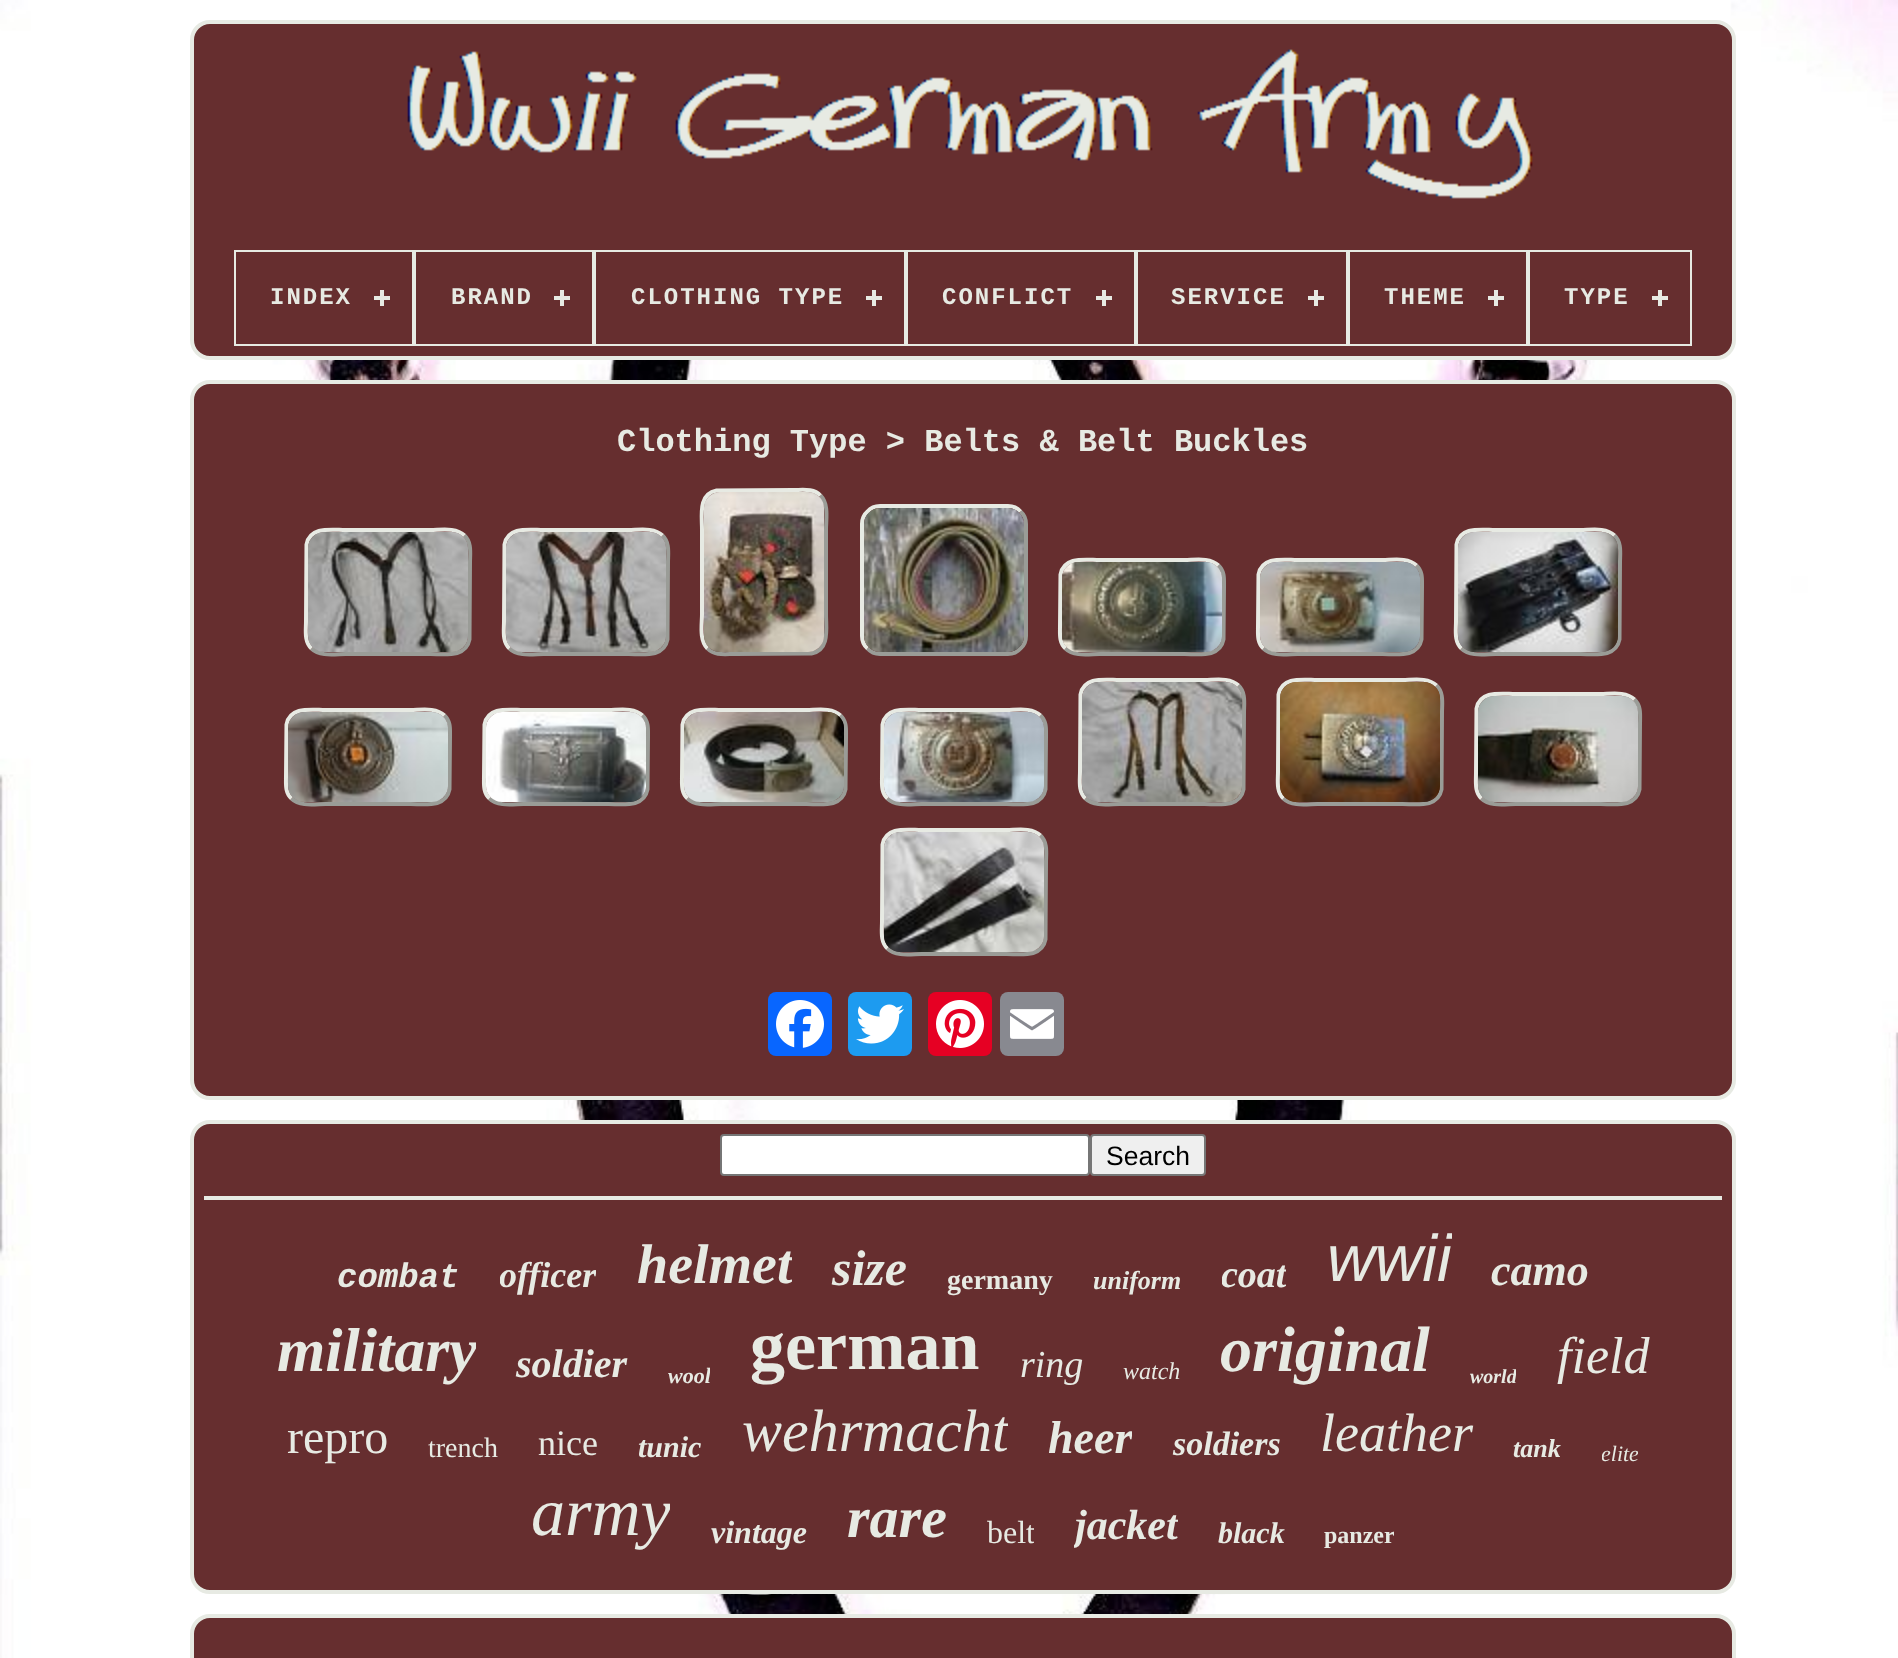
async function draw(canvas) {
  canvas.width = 1898
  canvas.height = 1658
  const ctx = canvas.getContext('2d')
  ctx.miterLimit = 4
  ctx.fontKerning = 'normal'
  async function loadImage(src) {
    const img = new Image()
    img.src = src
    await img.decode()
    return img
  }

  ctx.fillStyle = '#fff'
  ctx.fillRect(0, 0, 1898, 1658)
  ctx.drawImage(await loadImage('image0.png'), 0, 0, 1898, 1658)
  ctx.fillStyle = '#662e2f'
  ctx.beginPath()
  ctx.roundRect(192, 22, 1542, 336, 18)
  ctx.fill()
  ctx.strokeStyle = '#e7eae3'
  ctx.lineWidth = 4
  ctx.stroke()
  ctx.drawImage(await loadImage('image1.png'), 407, 49, 1126, 150)
  ctx.lineWidth = 2
  ctx.strokeRect(235, 251, 178, 94)
  ctx.letterSpacing = '2px'
  ctx.font = 'bold 24px Liberation Mono'
  ctx.fillStyle = '#e7eae3'
  ctx.fillText('INDEX', 270, 304)
  ctx.fillRect(380, 290, 4, 16)
  ctx.fillRect(374, 296, 16, 4)
  ctx.strokeRect(415, 251, 178, 94)
  ctx.fillText('BRAND', 451, 304)
  ctx.fillRect(560, 290, 4, 16)
  ctx.fillRect(554, 296, 16, 4)
  ctx.strokeRect(595, 251, 310, 94)
  ctx.fillText('CLOTHING TYPE', 631, 304)
  ctx.fillRect(872, 290, 4, 16)
  ctx.fillRect(866, 296, 16, 4)
  ctx.strokeRect(907, 251, 228, 94)
  ctx.fillText('CONFLICT', 942, 304)
  ctx.fillRect(1102, 290, 4, 16)
  ctx.fillRect(1096, 296, 16, 4)
  ctx.strokeRect(1137, 251, 210, 94)
  ctx.fillText('SERVICE', 1171, 304)
  ctx.fillRect(1314, 290, 4, 16)
  ctx.fillRect(1308, 296, 16, 4)
  ctx.strokeRect(1349, 251, 178, 94)
  ctx.fillText('THEME', 1384, 304)
  ctx.fillRect(1494, 290, 4, 16)
  ctx.fillRect(1488, 296, 16, 4)
  ctx.strokeRect(1529, 251, 162, 94)
  ctx.fillText('TYPE', 1564, 304)
  ctx.fillRect(1658, 290, 4, 16)
  ctx.fillRect(1652, 296, 16, 4)
  ctx.fillStyle = '#662e2f'
  ctx.beginPath()
  ctx.roundRect(192, 382, 1542, 716, 18)
  ctx.fill()
  ctx.lineWidth = 4
  ctx.stroke()
  ctx.letterSpacing = '0px'
  ctx.font = 'bold 32px Liberation Mono'
  ctx.fillStyle = '#e7eae3'
  ctx.fillText('Clothing Type > Belts & Belt Buckles', 617, 451)
  ctx.beginPath()
  ctx.moveTo(464.5, 535.5)
  ctx.bezierCurveTo(472, 542.5, 470, 553.5, 470, 562.5)
  ctx.lineTo(469.5, 639.5)
  ctx.bezierCurveTo(466, 658, 444.5, 654, 430.5, 654)
  ctx.lineTo(345.5, 654)
  ctx.bezierCurveTo(335.5, 654, 320, 657, 311.5, 648.5)
  ctx.strokeStyle = '#9a9c97'
  ctx.stroke()
  ctx.beginPath()
  ctx.moveTo(311.5, 648.5)
  ctx.bezierCurveTo(304, 641.5, 306, 630.5, 306, 621.5)
  ctx.lineTo(306.5, 544.5)
  ctx.bezierCurveTo(310, 526, 331.5, 530, 345.5, 530)
  ctx.lineTo(430.5, 530)
  ctx.bezierCurveTo(440.5, 530, 456, 527, 464.5, 535.5)
  ctx.strokeStyle = '#e7eae3'
  ctx.stroke()
  ctx.drawImage(await loadImage('image2.png'), 308, 532, 160, 120)
  ctx.beginPath()
  ctx.moveTo(662.5, 535.5)
  ctx.bezierCurveTo(670, 542.5, 668, 553.5, 668, 562.5)
  ctx.lineTo(667.5, 639.5)
  ctx.bezierCurveTo(664, 658, 642.5, 654, 628.5, 654)
  ctx.lineTo(543.5, 654)
  ctx.bezierCurveTo(533.5, 654, 518, 657, 509.5, 648.5)
  ctx.strokeStyle = '#9a9c97'
  ctx.stroke()
  ctx.beginPath()
  ctx.moveTo(509.5, 648.5)
  ctx.bezierCurveTo(502, 641.5, 504, 630.5, 504, 621.5)
  ctx.lineTo(504.5, 544.5)
  ctx.bezierCurveTo(508, 526, 529.5, 530, 543.5, 530)
  ctx.lineTo(628.5, 530)
  ctx.bezierCurveTo(638.5, 530, 654, 527, 662.5, 535.5)
  ctx.strokeStyle = '#e7eae3'
  ctx.stroke()
  ctx.drawImage(await loadImage('image3.png'), 506, 532, 160, 120)
  ctx.beginPath()
  ctx.moveTo(820.5, 495.5)
  ctx.bezierCurveTo(829, 504, 826, 519.5, 826, 529.5)
  ctx.lineTo(826, 614.5)
  ctx.bezierCurveTo(826, 628.5, 830, 650, 811.5, 653.5)
  ctx.lineTo(734.5, 654)
  ctx.bezierCurveTo(725.5, 654, 714.5, 656, 707.5, 648.5)
  ctx.strokeStyle = '#9a9c97'
  ctx.stroke()
  ctx.beginPath()
  ctx.moveTo(707.5, 648.5)
  ctx.bezierCurveTo(699, 640, 702, 624.5, 702, 614.5)
  ctx.lineTo(702, 529.5)
  ctx.bezierCurveTo(702, 515.5, 698, 494, 716.5, 490.5)
  ctx.lineTo(793.5, 490)
  ctx.bezierCurveTo(802.5, 490, 813.5, 488, 820.5, 495.5)
  ctx.strokeStyle = '#e7eae3'
  ctx.stroke()
  ctx.drawImage(await loadImage('image4.png'), 704, 492, 120, 160)
  ctx.beginPath()
  ctx.moveTo(1020.5, 511.5)
  ctx.bezierCurveTo(1024, 514.5, 1026, 519, 1026, 524)
  ctx.lineTo(1026, 636)
  ctx.bezierCurveTo(1026, 641, 1024, 645.5, 1020.5, 648.5)
  ctx.bezierCurveTo(1017.5, 652, 1013, 654, 1008, 654)
  ctx.lineTo(880, 654)
  ctx.bezierCurveTo(875, 654, 870.5, 652, 867.5, 648.5)
  ctx.strokeStyle = '#9a9c97'
  ctx.stroke()
  ctx.beginPath()
  ctx.moveTo(867.5, 648.5)
  ctx.bezierCurveTo(864, 645.5, 862, 641, 862, 636)
  ctx.lineTo(862, 524)
  ctx.bezierCurveTo(862, 519, 864, 514.5, 867.5, 511.5)
  ctx.bezierCurveTo(870.5, 508, 875, 506, 880, 506)
  ctx.lineTo(1008, 506)
  ctx.bezierCurveTo(1013, 506, 1017.5, 508, 1020.5, 511.5)
  ctx.strokeStyle = '#e7eae3'
  ctx.stroke()
  ctx.drawImage(await loadImage('image5.png'), 864, 508, 160, 144)
  ctx.beginPath()
  ctx.moveTo(1218.5, 565.5)
  ctx.bezierCurveTo(1225, 571.5, 1224, 579.5, 1224, 587.5)
  ctx.lineTo(1223.5, 639.5)
  ctx.bezierCurveTo(1220, 658, 1198.5, 654, 1184.5, 654)
  ctx.lineTo(1099.5, 654)
  ctx.bezierCurveTo(1089.5, 654, 1074, 657, 1065.5, 648.5)
  ctx.strokeStyle = '#9a9c97'
  ctx.stroke()
  ctx.beginPath()
  ctx.moveTo(1065.5, 648.5)
  ctx.bezierCurveTo(1059, 642.5, 1060, 634.5, 1060, 626.5)
  ctx.lineTo(1060.5, 574.5)
  ctx.bezierCurveTo(1064, 556, 1085.5, 560, 1099.5, 560)
  ctx.lineTo(1184.5, 560)
  ctx.bezierCurveTo(1194.5, 560, 1210, 557, 1218.5, 565.5)
  ctx.strokeStyle = '#e7eae3'
  ctx.stroke()
  ctx.drawImage(await loadImage('image6.png'), 1062, 562, 160, 90)
  ctx.beginPath()
  ctx.moveTo(1416.5, 565.5)
  ctx.bezierCurveTo(1423, 571.5, 1422, 579.5, 1422, 587.5)
  ctx.lineTo(1421.5, 639.5)
  ctx.bezierCurveTo(1418, 658, 1396.5, 654, 1382.5, 654)
  ctx.lineTo(1297.5, 654)
  ctx.bezierCurveTo(1287.5, 654, 1272, 657, 1263.5, 648.5)
  ctx.strokeStyle = '#9a9c97'
  ctx.stroke()
  ctx.beginPath()
  ctx.moveTo(1263.5, 648.5)
  ctx.bezierCurveTo(1257, 642.5, 1258, 634.5, 1258, 626.5)
  ctx.lineTo(1258.5, 574.5)
  ctx.bezierCurveTo(1262, 556, 1283.5, 560, 1297.5, 560)
  ctx.lineTo(1382.5, 560)
  ctx.bezierCurveTo(1392.5, 560, 1408, 557, 1416.5, 565.5)
  ctx.strokeStyle = '#e7eae3'
  ctx.stroke()
  ctx.drawImage(await loadImage('image7.png'), 1260, 562, 160, 90)
  ctx.beginPath()
  ctx.moveTo(1614.5, 535.5)
  ctx.bezierCurveTo(1622, 542.5, 1620, 553.5, 1620, 562.5)
  ctx.lineTo(1619.5, 639.5)
  ctx.bezierCurveTo(1616, 658, 1594.5, 654, 1580.5, 654)
  ctx.lineTo(1495.5, 654)
  ctx.bezierCurveTo(1485.5, 654, 1470, 657, 1461.5, 648.5)
  ctx.strokeStyle = '#9a9c97'
  ctx.stroke()
  ctx.beginPath()
  ctx.moveTo(1461.5, 648.5)
  ctx.bezierCurveTo(1454, 641.5, 1456, 630.5, 1456, 621.5)
  ctx.lineTo(1456.5, 544.5)
  ctx.bezierCurveTo(1460, 526, 1481.5, 530, 1495.5, 530)
  ctx.lineTo(1580.5, 530)
  ctx.bezierCurveTo(1590.5, 530, 1606, 527, 1614.5, 535.5)
  ctx.strokeStyle = '#e7eae3'
  ctx.stroke()
  ctx.drawImage(await loadImage('image8.png'), 1458, 532, 160, 120)
  ctx.beginPath()
  ctx.moveTo(444.5, 715.5)
  ctx.bezierCurveTo(451, 721.5, 450, 729.5, 450, 737.5)
  ctx.lineTo(449.5, 789.5)
  ctx.bezierCurveTo(446, 808, 424.5, 804, 410.5, 804)
  ctx.lineTo(325.5, 804)
  ctx.bezierCurveTo(315.5, 804, 300, 807, 291.5, 798.5)
  ctx.strokeStyle = '#9a9c97'
  ctx.stroke()
  ctx.beginPath()
  ctx.moveTo(291.5, 798.5)
  ctx.bezierCurveTo(285, 792.5, 286, 784.5, 286, 776.5)
  ctx.lineTo(286.5, 724.5)
  ctx.bezierCurveTo(290, 706, 311.5, 710, 325.5, 710)
  ctx.lineTo(410.5, 710)
  ctx.bezierCurveTo(420.5, 710, 436, 707, 444.5, 715.5)
  ctx.strokeStyle = '#e7eae3'
  ctx.stroke()
  ctx.drawImage(await loadImage('image9.png'), 288, 712, 160, 90)
  ctx.beginPath()
  ctx.moveTo(642.5, 715.5)
  ctx.bezierCurveTo(649, 721.5, 648, 729.5, 648, 737.5)
  ctx.lineTo(647.5, 789.5)
  ctx.bezierCurveTo(644, 808, 622.5, 804, 608.5, 804)
  ctx.lineTo(523.5, 804)
  ctx.bezierCurveTo(513.5, 804, 498, 807, 489.5, 798.5)
  ctx.strokeStyle = '#9a9c97'
  ctx.stroke()
  ctx.beginPath()
  ctx.moveTo(489.5, 798.5)
  ctx.bezierCurveTo(483, 792.5, 484, 784.5, 484, 776.5)
  ctx.lineTo(484.5, 724.5)
  ctx.bezierCurveTo(488, 706, 509.5, 710, 523.5, 710)
  ctx.lineTo(608.5, 710)
  ctx.bezierCurveTo(618.5, 710, 634, 707, 642.5, 715.5)
  ctx.strokeStyle = '#e7eae3'
  ctx.stroke()
  ctx.drawImage(await loadImage('image10.png'), 486, 712, 160, 90)
  ctx.beginPath()
  ctx.moveTo(840.5, 715.5)
  ctx.bezierCurveTo(847, 721.5, 846, 729.5, 846, 737.5)
  ctx.lineTo(845.5, 789.5)
  ctx.bezierCurveTo(842, 808, 820.5, 804, 806.5, 804)
  ctx.lineTo(721.5, 804)
  ctx.bezierCurveTo(711.5, 804, 696, 807, 687.5, 798.5)
  ctx.strokeStyle = '#9a9c97'
  ctx.stroke()
  ctx.beginPath()
  ctx.moveTo(687.5, 798.5)
  ctx.bezierCurveTo(681, 792.5, 682, 784.5, 682, 776.5)
  ctx.lineTo(682.5, 724.5)
  ctx.bezierCurveTo(686, 706, 707.5, 710, 721.5, 710)
  ctx.lineTo(806.5, 710)
  ctx.bezierCurveTo(816.5, 710, 832, 707, 840.5, 715.5)
  ctx.strokeStyle = '#e7eae3'
  ctx.stroke()
  ctx.drawImage(await loadImage('image11.png'), 684, 712, 160, 90)
  ctx.beginPath()
  ctx.moveTo(1040.5, 715.5)
  ctx.bezierCurveTo(1047, 721.5, 1046, 729.5, 1046, 737.5)
  ctx.lineTo(1045.5, 789.5)
  ctx.bezierCurveTo(1042, 808, 1020.5, 804, 1006.5, 804)
  ctx.lineTo(921.5, 804)
  ctx.bezierCurveTo(911.5, 804, 896, 807, 887.5, 798.5)
  ctx.strokeStyle = '#9a9c97'
  ctx.stroke()
  ctx.beginPath()
  ctx.moveTo(887.5, 798.5)
  ctx.bezierCurveTo(881, 792.5, 882, 784.5, 882, 776.5)
  ctx.lineTo(882.5, 724.5)
  ctx.bezierCurveTo(886, 706, 907.5, 710, 921.5, 710)
  ctx.lineTo(1006.5, 710)
  ctx.bezierCurveTo(1016.5, 710, 1032, 707, 1040.5, 715.5)
  ctx.strokeStyle = '#e7eae3'
  ctx.stroke()
  ctx.drawImage(await loadImage('image12.png'), 884, 712, 160, 90)
  ctx.beginPath()
  ctx.moveTo(1238.5, 685.5)
  ctx.bezierCurveTo(1246, 692.5, 1244, 703.5, 1244, 712.5)
  ctx.lineTo(1243.5, 789.5)
  ctx.bezierCurveTo(1240, 808, 1218.5, 804, 1204.5, 804)
  ctx.lineTo(1119.5, 804)
  ctx.bezierCurveTo(1109.5, 804, 1094, 807, 1085.5, 798.5)
  ctx.strokeStyle = '#9a9c97'
  ctx.stroke()
  ctx.beginPath()
  ctx.moveTo(1085.5, 798.5)
  ctx.bezierCurveTo(1078, 791.5, 1080, 780.5, 1080, 771.5)
  ctx.lineTo(1080.5, 694.5)
  ctx.bezierCurveTo(1084, 676, 1105.5, 680, 1119.5, 680)
  ctx.lineTo(1204.5, 680)
  ctx.bezierCurveTo(1214.5, 680, 1230, 677, 1238.5, 685.5)
  ctx.strokeStyle = '#e7eae3'
  ctx.stroke()
  ctx.drawImage(await loadImage('image13.png'), 1082, 682, 160, 120)
  ctx.beginPath()
  ctx.moveTo(1436.5, 685.5)
  ctx.bezierCurveTo(1444, 692.5, 1442, 703.5, 1442, 712.5)
  ctx.lineTo(1441.5, 789.5)
  ctx.bezierCurveTo(1438, 808, 1416.5, 804, 1402.5, 804)
  ctx.lineTo(1317.5, 804)
  ctx.bezierCurveTo(1307.5, 804, 1292, 807, 1283.5, 798.5)
  ctx.strokeStyle = '#9a9c97'
  ctx.stroke()
  ctx.beginPath()
  ctx.moveTo(1283.5, 798.5)
  ctx.bezierCurveTo(1276, 791.5, 1278, 780.5, 1278, 771.5)
  ctx.lineTo(1278.5, 694.5)
  ctx.bezierCurveTo(1282, 676, 1303.5, 680, 1317.5, 680)
  ctx.lineTo(1402.5, 680)
  ctx.bezierCurveTo(1412.5, 680, 1428, 677, 1436.5, 685.5)
  ctx.strokeStyle = '#e7eae3'
  ctx.stroke()
  ctx.drawImage(await loadImage('image14.png'), 1280, 682, 160, 120)
  ctx.beginPath()
  ctx.moveTo(1634.5, 699.5)
  ctx.bezierCurveTo(1641.5, 706, 1640, 715.5, 1640, 724.5)
  ctx.lineTo(1639.5, 789.5)
  ctx.bezierCurveTo(1636, 808, 1614.5, 804, 1600.5, 804)
  ctx.lineTo(1515.5, 804)
  ctx.bezierCurveTo(1505.5, 804, 1490, 807, 1481.5, 798.5)
  ctx.strokeStyle = '#9a9c97'
  ctx.stroke()
  ctx.beginPath()
  ctx.moveTo(1481.5, 798.5)
  ctx.bezierCurveTo(1474.5, 792, 1476, 782.5, 1476, 773.5)
  ctx.lineTo(1476.5, 708.5)
  ctx.bezierCurveTo(1480, 690, 1501.5, 694, 1515.5, 694)
  ctx.lineTo(1600.5, 694)
  ctx.bezierCurveTo(1610.5, 694, 1626, 691, 1634.5, 699.5)
  ctx.strokeStyle = '#e7eae3'
  ctx.stroke()
  ctx.drawImage(await loadImage('image15.png'), 1478, 696, 160, 106)
  ctx.beginPath()
  ctx.moveTo(1040.5, 835.5)
  ctx.bezierCurveTo(1048, 842.5, 1046, 853.5, 1046, 862.5)
  ctx.lineTo(1045.5, 939.5)
  ctx.bezierCurveTo(1042, 958, 1020.5, 954, 1006.5, 954)
  ctx.lineTo(921.5, 954)
  ctx.bezierCurveTo(911.5, 954, 896, 957, 887.5, 948.5)
  ctx.strokeStyle = '#9a9c97'
  ctx.stroke()
  ctx.beginPath()
  ctx.moveTo(887.5, 948.5)
  ctx.bezierCurveTo(880, 941.5, 882, 930.5, 882, 921.5)
  ctx.lineTo(882.5, 844.5)
  ctx.bezierCurveTo(886, 826, 907.5, 830, 921.5, 830)
  ctx.lineTo(1006.5, 830)
  ctx.bezierCurveTo(1016.5, 830, 1032, 827, 1040.5, 835.5)
  ctx.strokeStyle = '#e7eae3'
  ctx.stroke()
  ctx.drawImage(await loadImage('image16.png'), 884, 832, 160, 120)
  ctx.fillStyle = '#0866ff'
  ctx.beginPath()
  ctx.roundRect(768, 992, 64, 64, 8)
  ctx.fill()
  ctx.drawImage(await loadImage('image17.png'), 776, 1000, 48, 48)
  ctx.fillStyle = '#1d9bf0'
  ctx.beginPath()
  ctx.roundRect(848, 992, 64, 64, 8)
  ctx.fill()
  ctx.drawImage(await loadImage('image18.png'), 856, 1004, 48, 40)
  ctx.fillStyle = '#e60023'
  ctx.beginPath()
  ctx.roundRect(928, 992, 64, 64, 8)
  ctx.fill()
  ctx.drawImage(await loadImage('image19.png'), 936, 1000, 48, 48)
  ctx.fillStyle = '#888990'
  ctx.beginPath()
  ctx.roundRect(1000, 992, 64, 64, 8)
  ctx.fill()
  ctx.drawImage(await loadImage('image20.png'), 1010, 1009, 44, 30)
  ctx.fillStyle = '#662e2f'
  ctx.beginPath()
  ctx.roundRect(192, 1122, 1542, 470, 18)
  ctx.fill()
  ctx.stroke()
  ctx.fillStyle = '#fff'
  ctx.beginPath()
  ctx.roundRect(721, 1135, 368, 40, 3)
  ctx.fill()
  ctx.strokeStyle = '#767676'
  ctx.lineWidth = 2
  ctx.stroke()
  ctx.fillStyle = '#efefef'
  ctx.beginPath()
  ctx.roundRect(1091, 1135, 114, 40, 3)
  ctx.fill()
  ctx.stroke()
  ctx.font = '26.5px Liberation Sans'
  ctx.fillStyle = '#000'
  ctx.fillText('Search', 1106, 1165)
  ctx.fillStyle = '#e7eae3'
  ctx.fillRect(204, 1196, 1518, 4)
  ctx.font = 'italic bold 34px Liberation Mono'
  ctx.fillText('combat', 337, 1287)
  ctx.save()
  ctx.beginPath()
  ctx.rect(500, 1254, 96, 42)
  ctx.clip()
  ctx.font = 'italic bold 36px Liberation Serif'
  ctx.fillText('officer', 499, 1287)
  ctx.restore()
  ctx.save()
  ctx.beginPath()
  ctx.rect(636, 1232, 156, 64)
  ctx.clip()
  ctx.font = 'italic bold 56px Liberation Serif'
  ctx.fillText('helmet', 637, 1283)
  ctx.restore()
  ctx.font = 'italic bold 50px Liberation Serif'
  ctx.fillText('size', 832, 1285)
  ctx.font = 'bold 28px Liberation Serif'
  ctx.fillText('germany', 947, 1289)
  ctx.font = 'italic bold 26px Liberation Serif'
  ctx.fillText('uniform', 1093, 1289)
  ctx.save()
  ctx.beginPath()
  ctx.rect(1222, 1252, 64, 44)
  ctx.clip()
  ctx.font = 'italic bold 38px Liberation Serif'
  ctx.fillText('coat', 1221, 1287)
  ctx.restore()
  ctx.save()
  ctx.beginPath()
  ctx.rect(1326, 1220, 126, 76)
  ctx.clip()
  ctx.font = 'italic 66px Liberation Sans'
  ctx.fillText('wwii', 1327, 1281)
  ctx.restore()
  ctx.font = 'italic bold 44px Liberation Serif'
  ctx.fillText('camo', 1491, 1285)
  ctx.save()
  ctx.beginPath()
  ctx.rect(276, 1314, 200, 72)
  ctx.clip()
  ctx.font = 'italic bold 62px Liberation Serif'
  ctx.fillText('military', 277, 1371)
  ctx.restore()
  ctx.font = 'italic bold 40px Liberation Serif'
  ctx.fillText('soldier', 516, 1377)
  ctx.save()
  ctx.beginPath()
  ctx.rect(668, 1362, 42, 24)
  ctx.clip()
  ctx.font = 'italic bold 22px Liberation Serif'
  ctx.fillText('wool', 668, 1383)
  ctx.restore()
  ctx.font = 'bold 70px Liberation Serif'
  ctx.fillText('german', 750, 1369)
  ctx.font = 'italic 38px Liberation Serif'
  ctx.fillText('ring', 1020, 1377)
  ctx.font = 'italic 24px Liberation Serif'
  ctx.fillText('watch', 1123, 1379)
  ctx.font = 'italic bold 64px Liberation Serif'
  ctx.fillText('original', 1220, 1371)
  ctx.save()
  ctx.beginPath()
  ctx.rect(1470, 1364, 46, 22)
  ctx.clip()
  ctx.font = 'italic bold 20px Liberation Serif'
  ctx.fillText('world', 1470, 1383)
  ctx.restore()
  ctx.font = 'italic 52px Liberation Serif'
  ctx.fillText('field', 1557, 1373)
  ctx.font = '48px Liberation Serif'
  ctx.fillText('repro', 287, 1453)
  ctx.font = '28px Liberation Serif'
  ctx.fillText('trench', 428, 1457)
  ctx.font = '36px Liberation Serif'
  ctx.fillText('nice', 538, 1455)
  ctx.font = 'italic bold 30px Liberation Serif'
  ctx.fillText('tunic', 638, 1457)
  ctx.save()
  ctx.beginPath()
  ctx.rect(742, 1396, 266, 68)
  ctx.clip()
  ctx.font = 'italic 60px Liberation Serif'
  ctx.fillText('wehrmacht', 742, 1451)
  ctx.restore()
  ctx.save()
  ctx.beginPath()
  ctx.rect(1048, 1412, 84, 52)
  ctx.clip()
  ctx.font = 'italic bold 46px Liberation Serif'
  ctx.fillText('heer', 1048, 1453)
  ctx.restore()
  ctx.font = 'italic bold 34px Liberation Serif'
  ctx.fillText('soldiers', 1173, 1455)
  ctx.font = 'italic 54px Liberation Serif'
  ctx.fillText('leather', 1320, 1451)
  ctx.font = 'italic bold 26px Liberation Serif'
  ctx.fillText('tank', 1513, 1457)
  ctx.save()
  ctx.beginPath()
  ctx.rect(1602, 1440, 36, 24)
  ctx.clip()
  ctx.font = 'italic 22px Liberation Serif'
  ctx.fillText('elite', 1601, 1461)
  ctx.restore()
  ctx.save()
  ctx.beginPath()
  ctx.rect(532, 1474, 138, 76)
  ctx.clip()
  ctx.font = 'italic 68px Liberation Serif'
  ctx.fillText('army', 531, 1535)
  ctx.restore()
  ctx.font = 'italic bold 32px Liberation Serif'
  ctx.fillText('vintage', 711, 1543)
  ctx.font = 'italic bold 58px Liberation Serif'
  ctx.fillText('rare', 847, 1537)
  ctx.save()
  ctx.beginPath()
  ctx.rect(986, 1514, 48, 36)
  ctx.clip()
  ctx.font = '32px Liberation Serif'
  ctx.fillText('belt', 987, 1543)
  ctx.restore()
  ctx.save()
  ctx.beginPath()
  ctx.rect(1074, 1500, 104, 50)
  ctx.clip()
  ctx.font = 'italic bold 42px Liberation Serif'
  ctx.fillText('jacket', 1075, 1539)
  ctx.restore()
  ctx.font = 'italic bold 30px Liberation Serif'
  ctx.fillText('black', 1218, 1543)
  ctx.save()
  ctx.beginPath()
  ctx.rect(1324, 1520, 70, 30)
  ctx.clip()
  ctx.font = 'bold 24px Liberation Serif'
  ctx.fillText('panzer', 1324, 1543)
  ctx.restore()
  ctx.fillStyle = '#662e2f'
  ctx.beginPath()
  ctx.roundRect(192, 1616, 1542, 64, 18)
  ctx.fill()
  ctx.strokeStyle = '#e7eae3'
  ctx.lineWidth = 4
  ctx.stroke()
}

draw(document.querySelector('canvas'))
